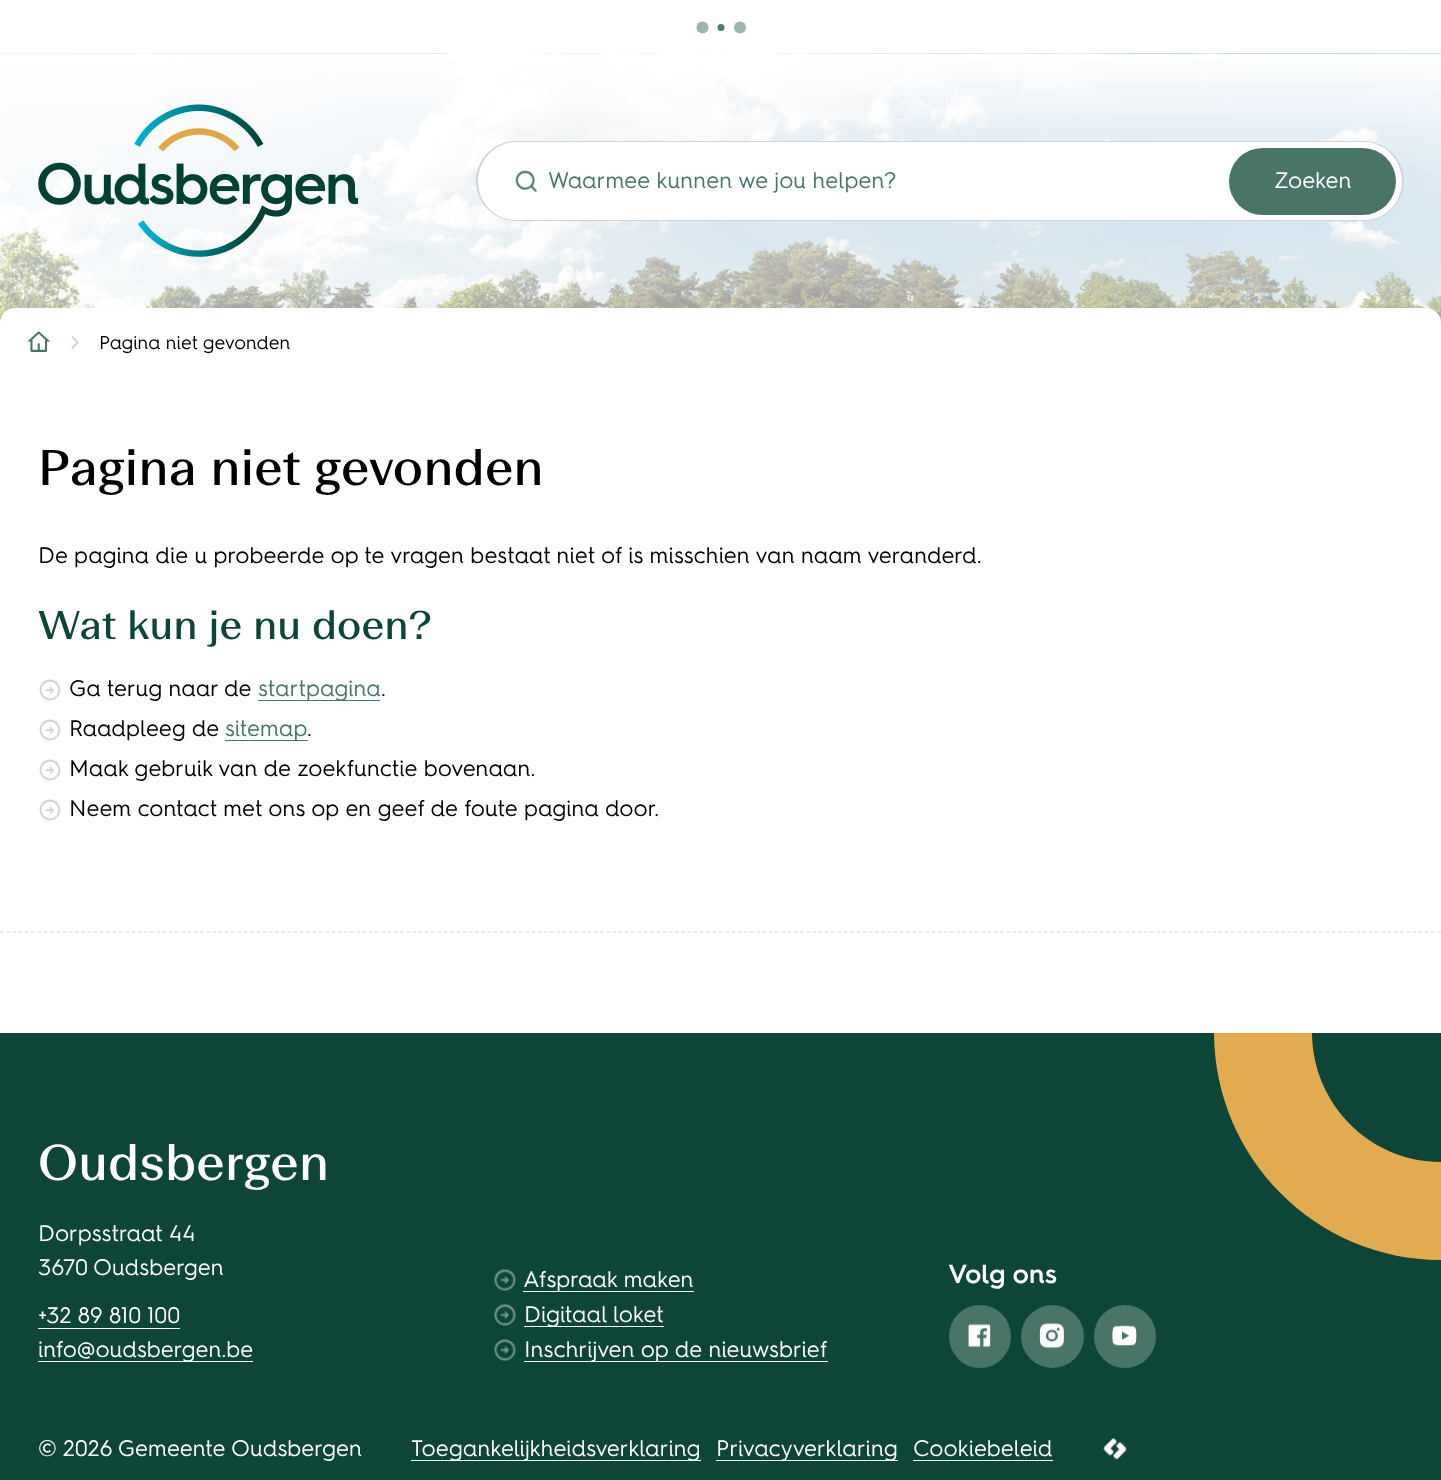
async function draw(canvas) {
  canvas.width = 1441
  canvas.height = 1480
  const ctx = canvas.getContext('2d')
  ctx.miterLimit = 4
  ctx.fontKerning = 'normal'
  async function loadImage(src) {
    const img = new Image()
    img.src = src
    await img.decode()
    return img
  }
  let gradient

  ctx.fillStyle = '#fff'
  ctx.fillRect(0, 0, 1441, 1480)
  ctx.fillStyle = '#9cb4ad'
  ctx.beginPath()
  ctx.arc(702.5, 27.5, 6, 0, 2 * Math.PI)
  ctx.fill()
  ctx.fillStyle = '#517b6e'
  ctx.beginPath()
  ctx.arc(721, 27.5, 3.5, 0, 2 * Math.PI)
  ctx.fill()
  ctx.fillStyle = '#9cb4ad'
  ctx.beginPath()
  ctx.arc(740, 27.5, 6, 0, 2 * Math.PI)
  ctx.fill()
  ctx.drawImage(await loadImage('image0.png'), 0, 53, 1441, 270)
  gradient = ctx.createLinearGradient(721, 54, 721, 683)
  gradient.addColorStop(0, '#fff')
  gradient.addColorStop(1, '#ffffff0d')
  ctx.fillStyle = gradient
  ctx.fillRect(0, 54, 1441, 269)
  ctx.drawImage(await loadImage('image1.png'), 38, 104, 320, 153)
  ctx.fillStyle = '#fff'
  ctx.beginPath()
  ctx.roundRect(476, 141, 663, 80, [40, 0, 0, 40])
  ctx.fill()
  ctx.fillStyle = '#ced4da'
  ctx.beginPath()
  ctx.moveTo(516, 141)
  ctx.lineTo(1139, 141)
  ctx.lineTo(1139, 221)
  ctx.lineTo(516, 221)
  ctx.bezierCurveTo(494, 221, 476, 203, 476, 181)
  ctx.bezierCurveTo(476, 159, 494, 141, 516, 141)
  ctx.closePath()
  ctx.moveTo(516, 142)
  ctx.lineTo(1139, 142)
  ctx.lineTo(1139, 220)
  ctx.lineTo(516, 220)
  ctx.bezierCurveTo(495, 220, 478, 203, 478, 181)
  ctx.bezierCurveTo(478, 160, 495, 142, 516, 142)
  ctx.closePath()
  ctx.fill('evenodd')
  ctx.drawImage(await loadImage('image2.png'), 515, 170, 23, 23)
  ctx.font = '22.5px "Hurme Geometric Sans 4"'
  ctx.fillStyle = '#497568'
  ctx.fillText('Waarmee kunnen we jou helpen?', 548, 188)
  ctx.fillStyle = '#fff'
  ctx.fillRect(1139, 142, 57, 78)
  ctx.fillStyle = '#ced4da'
  ctx.fillRect(1139, 141, 59, 1)
  ctx.fillRect(1139, 220, 59, 1)
  ctx.fillStyle = '#fff'
  ctx.beginPath()
  ctx.roundRect(1196, 141, 208, 80, [0, 40, 40, 0])
  ctx.fill()
  ctx.fillStyle = '#ced4da'
  ctx.beginPath()
  ctx.moveTo(1196, 141)
  ctx.lineTo(1364, 141)
  ctx.bezierCurveTo(1386, 141, 1404, 159, 1404, 181)
  ctx.bezierCurveTo(1404, 203, 1386, 221, 1364, 221)
  ctx.lineTo(1196, 221)
  ctx.closePath()
  ctx.moveTo(1196, 142)
  ctx.lineTo(1364, 142)
  ctx.bezierCurveTo(1385, 142, 1402, 160, 1402, 181)
  ctx.bezierCurveTo(1402, 203, 1385, 220, 1364, 220)
  ctx.lineTo(1196, 220)
  ctx.closePath()
  ctx.fill('evenodd')
  ctx.fillStyle = '#497568'
  ctx.beginPath()
  ctx.roundRect(1229, 148, 167, 67, 33.5)
  ctx.fill()
  ctx.fillStyle = '#fff'
  ctx.fillText('Zoeken', 1274, 188)
  ctx.beginPath()
  ctx.roundRect(0, 308, 1441, 65, [15, 15, 0, 0])
  ctx.fill()
  ctx.drawImage(await loadImage('image3.png'), 27, 331, 23, 21)
  ctx.drawImage(await loadImage('image4.png'), 71, 336, 8, 13)
  ctx.font = '18.75px "Hurme Geometric Sans 4"'
  ctx.fillStyle = '#000'
  ctx.fillText('Pagina niet gevonden', 99, 349)
  ctx.font = '50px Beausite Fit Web'
  ctx.fillText('Pagina niet gevonden', 38, 485)
  ctx.font = '22.5px "Hurme Geometric Sans 4"'
  ctx.fillText('De pagina die u probeerde op te vragen bestaat niet of is misschien van naam veranderd.', 38, 563)
  ctx.font = '40px Beausite Fit Web'
  ctx.fillStyle = '#0d4538'
  ctx.fillText('Wat kun je nu doen?', 38, 639)
  ctx.drawImage(await loadImage('image5.png'), 39, 679, 22, 22)
  ctx.font = '22.5px "Hurme Geometric Sans 4"'
  ctx.fillStyle = '#000'
  ctx.fillText('Ga terug naar de', 69, 696)
  ctx.fillStyle = '#497568'
  ctx.fillRect(258, 700, 122, 1)
  ctx.fillText('startpagina', 258, 696)
  ctx.fillStyle = '#000'
  ctx.fillText('.', 381, 696)
  ctx.drawImage(await loadImage('image5.png'), 39, 719, 22, 22)
  ctx.fillText('Raadpleeg de', 69, 736)
  ctx.fillStyle = '#497568'
  ctx.fillRect(225, 740, 83, 1)
  ctx.fillText('sitemap', 225, 736)
  ctx.fillStyle = '#000'
  ctx.fillText('.', 307, 736)
  ctx.drawImage(await loadImage('image6.png'), 39, 759, 22, 22)
  ctx.fillText('Maak gebruik van de zoekfunctie bovenaan.', 69, 776)
  ctx.drawImage(await loadImage('image5.png'), 39, 799, 22, 22)
  ctx.fillText('Neem contact met ons op en geef de foute pagina door.', 69, 816)
  ctx.beginPath()
  ctx.moveTo(0, 932)
  ctx.lineTo(1441, 932)
  ctx.strokeStyle = '#cfdad6'
  ctx.lineWidth = 1.2
  ctx.setLineDash([3.75, 2.5])
  ctx.stroke()
  ctx.fillStyle = '#0d4538'
  ctx.fillRect(0, 1033, 1441, 447)
  ctx.font = '50px Beausite Fit Web'
  ctx.fillStyle = '#fff'
  ctx.fillText('Oudsbergen', 38, 1180)
  ctx.font = '22.5px "Hurme Geometric Sans 4"'
  ctx.fillText('Dorpsstraat 44', 38, 1241)
  ctx.fillText('3670', 38, 1275)
  ctx.fillText('Oudsbergen', 93, 1275)
  ctx.fillText('+32 89 810 100', 38, 1323)
  ctx.fillRect(38, 1328, 142, 1)
  ctx.fillRect(38, 1361, 215, 1)
  ctx.fillText('info@oudsbergen.be', 38, 1357)
  ctx.drawImage(await loadImage('image7.png'), 494, 1269, 22, 22)
  ctx.fillRect(523, 1291, 171, 1)
  ctx.fillText('Afspraak maken', 523, 1287)
  ctx.drawImage(await loadImage('image7.png'), 494, 1304, 22, 22)
  ctx.fillRect(524, 1326, 140, 1)
  ctx.fillText('Digitaal loket', 524, 1322)
  ctx.drawImage(await loadImage('image7.png'), 494, 1339, 22, 22)
  ctx.fillRect(524, 1361, 304, 1)
  ctx.fillText('Inschrijven op de nieuwsbrief', 524, 1357)
  ctx.font = '600 26.25px "Hurme Geometric Sans 4"'
  ctx.fillText('Volg ons', 948, 1283)
  ctx.fillStyle = '#497568'
  ctx.beginPath()
  ctx.roundRect(949, 1305, 62, 63, 31)
  ctx.fill()
  ctx.drawImage(await loadImage('image8.png'), 968, 1324, 23, 24)
  ctx.beginPath()
  ctx.arc(1052.5, 1336.5, 31.5, 0, 2 * Math.PI)
  ctx.fill()
  ctx.drawImage(await loadImage('image9.png'), 1039, 1323, 25, 26)
  ctx.beginPath()
  ctx.roundRect(1094, 1305, 62, 63, 31)
  ctx.fill()
  ctx.drawImage(await loadImage('image10.png'), 1112, 1325, 25, 21)
  ctx.save()
  ctx.beginPath()
  ctx.rect(1214, 1033, 227, 227)
  ctx.clip()
  ctx.fillStyle = '#e2ab50'
  ctx.beginPath()
  ctx.moveTo(1441, 1162)
  ctx.bezierCurveTo(1370, 1162, 1312, 1104, 1312, 1032)
  ctx.lineTo(1214, 1032)
  ctx.bezierCurveTo(1214, 1158, 1316, 1260, 1441, 1260)
  ctx.closePath()
  ctx.fill()
  ctx.restore()
  ctx.font = '22.5px "Hurme Geometric Sans 4"'
  ctx.fillStyle = '#fff'
  ctx.fillText('© 2026 Gemeente Oudsbergen', 38, 1456)
  ctx.fillRect(411, 1460, 290, 1)
  ctx.fillText('Toegankelijkheidsverklaring', 411, 1456)
  ctx.fillRect(716, 1460, 182, 1)
  ctx.fillText('Privacyverklaring', 716, 1456)
  ctx.fillText('Cookiebeleid', 913, 1456)
  ctx.fillRect(913, 1460, 140, 1)
  ctx.drawImage(await loadImage('image11.png'), 1103, 1438, 24, 22)
}

draw(document.querySelector('canvas'))
